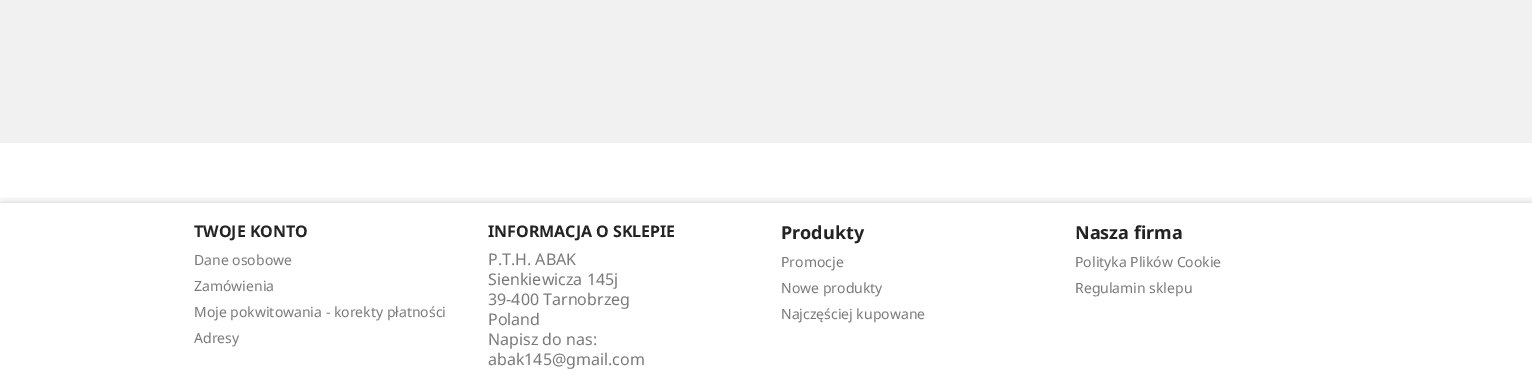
%!PS
<< /PageSize [1532 375] /PageUsesTransparency true >> setpagedevice
/rgb { dup -16 bitshift 255 div exch dup -8 bitshift 255 and 255 div exch 255 and 255 div setrgbcolor } def
/font { [ exch dup neg 0 0 3 -1 roll 0 0 ] selectfont } def
/text { moveto show } def
/alpha { dup .setfillconstantalpha .setstrokeconstantalpha } def
/roundrect { 5 dict begin { /r /h /w /y /x } { exch def } forall
  x r add y moveto x w add y 2 copy h add r arct x w add y h add x 1 index r arct
  x y h add x y r arct x y 2 copy exch w add exch r arct closepath end } def
/shadow { 12 dict begin { /a /b /q /h /w /y /x } { exch def } forall gsave /was 0 def
  9 -2 -9 { dup b mul 4 div /e exch def 1 sub .425 mul 2.718 exch exp 1 add a .99 .min exch div /now exch def
    1 1 now sub 1 was sub div sub alpha /was now def
    w h .min e 2 mul add 0 gt { x e sub y e sub w e 2 mul add h e 2 mul add
      q e add b .6 mul add w h .min 2 div e add .min 0 .max roundrect fill } if } for grestore end } def
0 .pushpdf14devicefilter
0 375 translate 1 -1 scale
4 setmiterlimit
/s1 { /NotoSans-Bold 16 font 16#232323 rgb } def
/s2 { /NotoSans-Regular 14 font 16#7A7A7A rgb } def
/s3 { /NotoSans-Regular 16 font 16#7A7A7A rgb } def
/s4 { /NotoSans-Bold 18 font 16#232323 rgb } def
16#FFFFFF rgb
0 0 1532 375 rectfill
16#F1F1F1 rgb
0 0 1532 143 rectfill
gsave
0 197 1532 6 rectclip
16#000000 rgb
2 205 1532 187 0 5.5 0.3 shadow
grestore
s1
(TWOJE KONTO) 194 237 text
s2
(Dane osobowe) 194 265 text
(Zamówienia) 194 291 text
(Moje pokwitowania - korekty płatności) 194 317 text
(Adresy) 194 343 text
s1
(INFORMACJA O SKLEPIE) 488 237 text
s3
(P.T.H. ABAK) 488 265 text
(Sienkiewicza 145j) 488 285 text
(39-400 Tarnobrzeg) 488 305 text
(Poland) 488 325 text
(Napisz do nas:) 488 345 text
(abak145@gmail.com) 488 365 text
s4
(Produkty) 781 239 text
s2
(Promocje) 781 267 text
(Nowe produkty) 781 293 text
(Najczęściej kupowane) 781 319 text
s4
(Nasza firma) 1075 239 text
s2
(Polityka Plików Cookie) 1075 267 text
(Regulamin sklepu) 1075 293 text
.poppdf14devicefilter showpage
